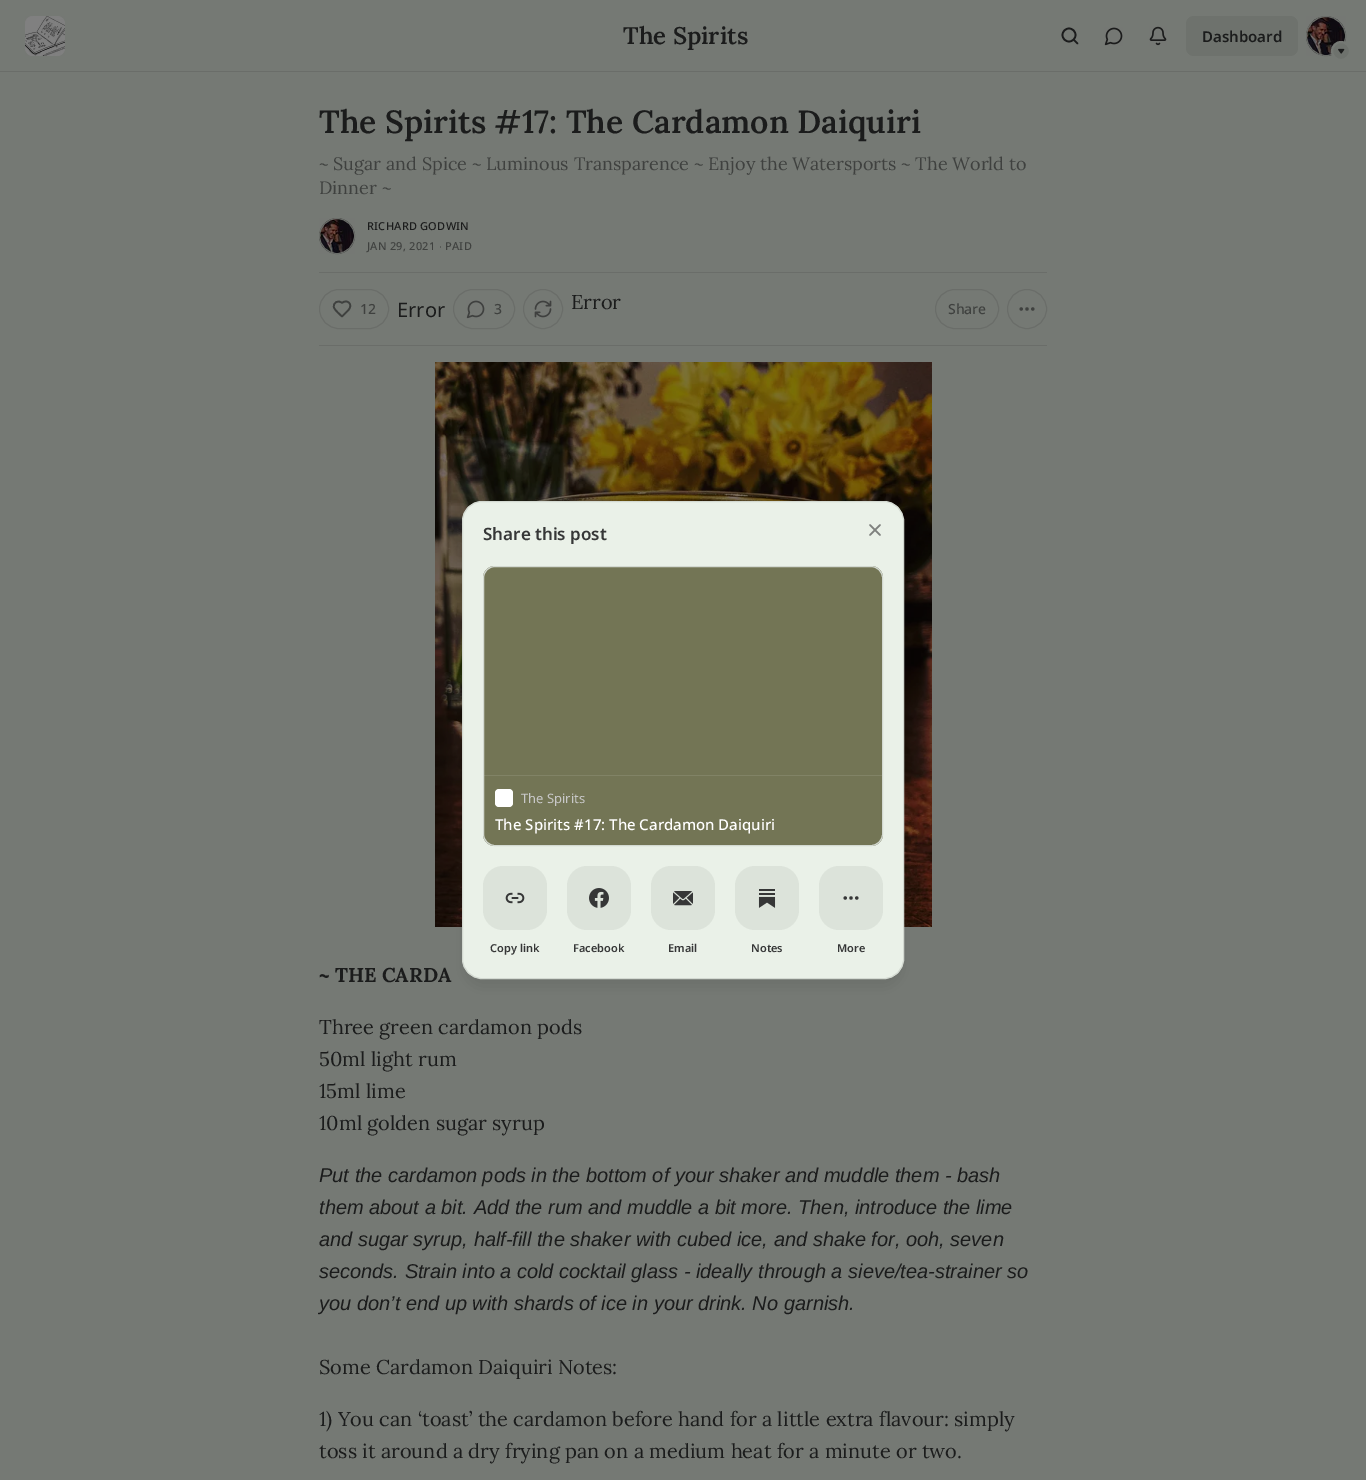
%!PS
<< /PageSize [1366 1480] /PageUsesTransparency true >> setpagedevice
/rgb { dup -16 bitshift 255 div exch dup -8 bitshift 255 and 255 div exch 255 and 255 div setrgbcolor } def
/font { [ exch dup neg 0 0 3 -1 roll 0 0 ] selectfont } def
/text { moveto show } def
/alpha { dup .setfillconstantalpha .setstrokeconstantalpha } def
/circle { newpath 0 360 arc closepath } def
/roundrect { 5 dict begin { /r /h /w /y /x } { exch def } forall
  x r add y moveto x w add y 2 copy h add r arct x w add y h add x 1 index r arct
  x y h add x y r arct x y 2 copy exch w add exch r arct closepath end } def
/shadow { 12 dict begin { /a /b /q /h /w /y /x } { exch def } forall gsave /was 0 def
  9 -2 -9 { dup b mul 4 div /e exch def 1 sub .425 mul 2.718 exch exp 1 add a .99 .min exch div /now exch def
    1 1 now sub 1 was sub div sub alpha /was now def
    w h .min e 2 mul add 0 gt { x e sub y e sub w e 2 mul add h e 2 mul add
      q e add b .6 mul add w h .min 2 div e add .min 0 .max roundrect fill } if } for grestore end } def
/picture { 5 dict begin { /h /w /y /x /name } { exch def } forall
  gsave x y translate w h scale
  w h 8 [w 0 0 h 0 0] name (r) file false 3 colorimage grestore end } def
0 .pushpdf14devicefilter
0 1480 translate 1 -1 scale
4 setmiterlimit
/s1 { /Lora-SemiBold 24 font 16#1B1C1C rgb } def
/s2 { /NotoSans-SemiBold 15 font 16#1B1C1C rgb } def
/s3 { /Lora-SemiBold 32 font 16#1B1C1C rgb } def
/s4 { /Lora-Regular 18 font 16#3F413F rgb } def
/s5 { /NotoSans-Medium 14 font 16#3F413F rgb } def
/s6 { /NotoSans-Regular 20 font 16#1B1C1C rgb } def
/s7 { /Lora-Regular 20 font 16#1B1C1C rgb } def
/s8 { /Lora-Bold 20 font 16#1B1C1C rgb } def
/s9 { /LiberationSans-Italic 20 font 16#1B1C1C rgb } def
/s10 { /NotoSans-SemiBold 17 font 16#363737 rgb } def
/s11 { /NotoSans-Regular 13 font 16#C8C8C8 rgb } def
/s12 { /NotoSans-Medium 15 font 16#FFFFFF rgb } def
/s13 { /NotoSans-SemiBold 11 font 16#363737 rgb } def
16#757974 rgb
0 0 1366 1480 rectfill
16#6A6D69 rgb
0 71 1366 1 rectfill
16#808080 rgb
25 16 40 40 8 roundrect fill
(pic1.raw) 25 16 40 40 picture
s1
(The Spirits) 623 44 text
1.7 setlinewidth
1069 35 6.5 circle stroke
1 setlinecap
1 setlinejoin
1077.5 43.5 moveto 1074 40 lineto stroke
(pic2.raw) 1104 27 19 19 picture
(pic3.raw) 1149 26 18 20 picture
16#6E726D rgb
1186 16 112 40 8 roundrect fill
s2
(Dashboard) 1202 42 text
16#6A6D69 rgb
1 setlinewidth
0 setlinecap
0 setlinejoin
1326 36 19.5 circle stroke
(pic4.raw) 1306 16 40 40 picture
1326 36 19.5 circle stroke
16#6E726D rgb
1341 51 9 circle gsave fill grestore
16#757974 rgb
2 setlinewidth
stroke
(pic5.raw) 1338 48 7 6 picture
s3
(The Spirits #17: The Cardamon Daiquiri) 319 133 text
s4
(~ Sugar and Spice ~ Luminous Transparence ~ Enjoy the Watersports ~ The World to) 319 170 text
(Dinner ~) 319 194 text
16#6A6D69 rgb
1 setlinewidth
337 236 17.5 circle stroke
(pic6.raw) 319 218 36 36 picture
337 236 17.5 circle stroke
/NotoSans-Medium 11 font
16#1B1C1C rgb
367 230 moveto 0.25 0 (RICHARD GODWIN) ashow
16#3F413F rgb
367 250 moveto 0.25 0 (JAN 29, 2021) ashow
/LiberationSans-Regular 11 font
439 250 moveto 0.25 0 (∙) ashow
/NotoSans-Medium 11 font
445 250 moveto 0.25 0 (PAID) ashow
16#6A6D69 rgb
319 272 728 1 rectfill
319 345 728 1 rectfill
319.5 289.5 69 39 19.5 roundrect stroke
16#3F413F rgb
1.7 setlinewidth
1 setlinecap
1 setlinejoin
348 310.5 moveto 354 304.5 347 298.5 342 303 curveto 338.5 299.5 332.5 302.5 334 307.5 curveto 335 310.5 340 314.5 342 316.5 curveto closepath stroke
s5
(12) 360 314 text
s6
(Error) 397 317 text
16#6A6D69 rgb
1 setlinewidth
0 setlinecap
0 setlinejoin
453.5 289.5 61 39 19.5 roundrect stroke
(pic7.raw) 466 300 19 19 picture
s5
(3) 494 314 text
16#6A6D69 rgb
543 309 19.5 circle stroke
(pic8.raw) 534 300 18 18 picture
s7
(Error) 571 309 text
16#6A6D69 rgb
935.5 289.5 63 39 19.5 roundrect stroke
s5
(Share) 948 314 text
16#6A6D69 rgb
1027 309 19.5 circle stroke
16#3F413F rgb
1.7 setlinewidth
1027 309 0.8 circle stroke
1032.8 309 0.8 circle stroke
1021.2 309 0.8 circle stroke
(pic9.raw) 435 362 497 565 picture
s8
(~ THE CARDA) 319 982 text
s7
(Three green cardamon pods) 319 1034 text
(50ml light rum) 319 1066 text
(15ml lime) 319 1098 text
(10ml golden sugar syrup) 319 1130 text
s9
(Put the cardamon pods in the bottom of your shaker and muddle them - bash) 319 1182 text
(them about a bit. Add the rum and muddle a bit more. Then, introduce the lime) 319 1214 text
(and sugar syrup, half-fill the shaker with cubed ice, and shake for, ooh, seven) 319 1246 text
(seconds. Strain into a cold cocktail glass - ideally through a sieve/tea-strainer so) 319 1278 text
(you don’t end up with shards of ice in your drink. No garnish.) 319 1310 text
s7
(Some Cardamon Daiquiri Notes:) 319 1374 text
(1\) You can ‘toast’ the cardamon before hand for a little extra flavour: simply) 319 1426 text
(toss it around a dry frying pan on a medium heat for a minute or two.) 319 1458 text
16#000000 rgb
465 514 436 472 17 7.5 0.1 shadow
16#EAF1E8 rgb
462.5 501.5 441 477 19.5 roundrect gsave fill grestore
16#D3D9D1 rgb
1 setlinewidth
stroke
s10
(Share this post) 483 540 text
16#7E817E rgb
1.7 setlinewidth
1 setlinecap
1 setlinejoin
880 525 moveto 870 535 lineto 870 525 moveto 880 535 lineto stroke
16#DCE3DA rgb
483 566 400 280 12 roundrect fill
0.75 alpha
16#505029 rgb
483 566 400 280 12 roundrect fill
1 alpha
16#818366 rgb
483 775 400 1 rectfill
16#FFFFFF rgb
495 789 18 18 4 roundrect fill
16#D3D9D1 rgb
1 setlinewidth
0 setlinecap
0 setlinejoin
483.5 566.5 399 279 11.5 roundrect stroke
s11
(The Spirits) 521 803 text
s12
(The Spirits #17: The Cardamon Daiquiri) 495 830 text
16#DCE3DA rgb
483 866 64 64 20 roundrect fill
(pic10.raw) 505 892 20 12 picture
s13
(Copy link) 490 952 text
16#DCE3DA rgb
567 866 64 64 20 roundrect fill
(pic11.raw) 589 888 20 20 picture
s13
(Facebook) 573 952 text
16#DCE3DA rgb
651 866 64 64 20 roundrect fill
(pic12.raw) 673 891 20 15 picture
s13
(Email) 668 952 text
16#DCE3DA rgb
735 866 64 64 20 roundrect fill
(pic13.raw) 758 889 18 19 picture
s13
(Notes) 751 952 text
16#DCE3DA rgb
819 866 64 64 20 roundrect fill
16#363737 rgb
1.7 setlinewidth
851 898 0.8 circle stroke
856.8 898 0.8 circle stroke
845.2 898 0.8 circle stroke
(More) 837 952 text
.poppdf14devicefilter showpage
